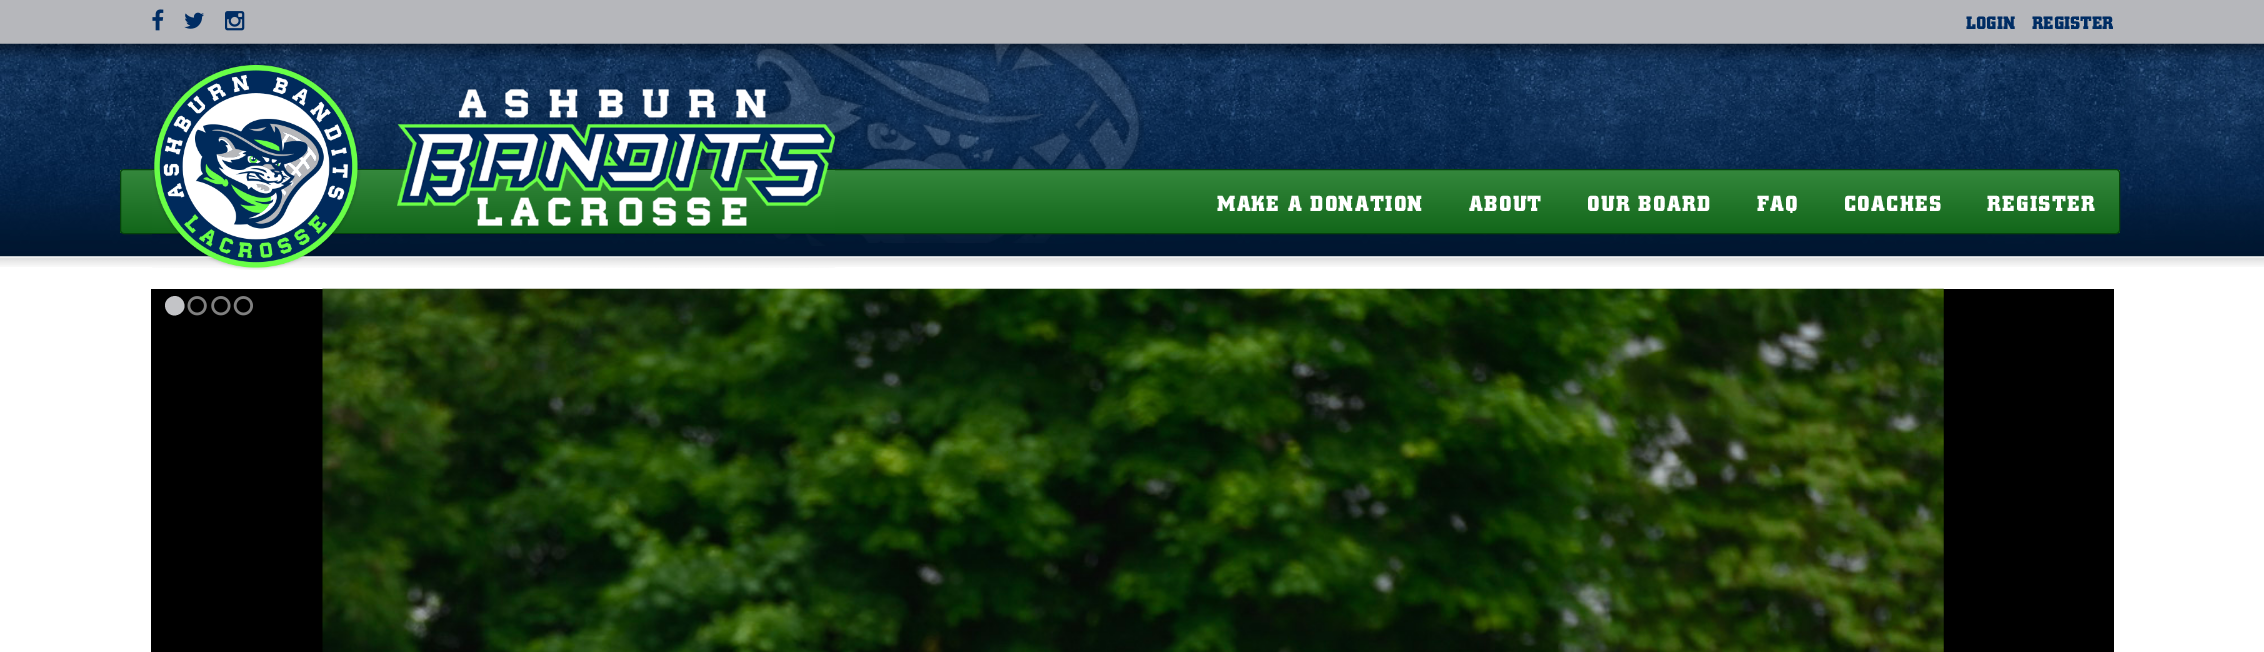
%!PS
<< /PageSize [2264 652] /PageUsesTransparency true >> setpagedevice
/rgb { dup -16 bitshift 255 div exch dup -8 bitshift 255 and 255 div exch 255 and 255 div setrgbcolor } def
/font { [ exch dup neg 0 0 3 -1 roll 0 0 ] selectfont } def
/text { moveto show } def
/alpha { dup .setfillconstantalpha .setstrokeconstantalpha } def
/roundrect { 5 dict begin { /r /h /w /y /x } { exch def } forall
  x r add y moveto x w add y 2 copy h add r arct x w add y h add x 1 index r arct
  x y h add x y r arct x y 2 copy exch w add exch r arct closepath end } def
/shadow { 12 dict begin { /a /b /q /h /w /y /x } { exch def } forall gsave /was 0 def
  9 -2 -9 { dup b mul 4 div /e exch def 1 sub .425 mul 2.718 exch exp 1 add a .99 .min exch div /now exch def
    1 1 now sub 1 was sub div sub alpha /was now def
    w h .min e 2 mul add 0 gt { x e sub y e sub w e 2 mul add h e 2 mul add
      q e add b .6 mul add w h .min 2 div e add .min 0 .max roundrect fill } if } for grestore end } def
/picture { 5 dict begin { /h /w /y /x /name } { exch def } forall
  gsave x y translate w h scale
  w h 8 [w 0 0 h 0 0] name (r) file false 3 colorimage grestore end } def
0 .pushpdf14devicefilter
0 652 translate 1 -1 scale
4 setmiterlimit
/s1 { /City-Bold 17.5 font 16#002D64 rgb } def
16#B6B7BB rgb
0 0 2264 652 rectfill
(pic1.raw) 152 9 12 22 picture
(pic2.raw) 184 12 20 17 picture
(pic3.raw) 225 11 20 20 picture
s1
(LOGIN) 1966 29 text
(REGISTER) 2032 29 text
16#FFFFFF rgb
0 256 2264 396 rectfill
(pic4.raw) 0 43 2264 214 picture
(pic6.raw) 700 43 444 200 picture
16#000000 rgb
120 171 2000 65 4 2 0.1 shadow
gsave
120 169 2000 65 4 roundrect clip newpath
gsave 120 170 moveto 2120 170 lineto 2120 233 lineto 120 233 lineto closepath clip newpath
<< /ShadingType 2 /ColorSpace /DeviceRGB /Coords [1120 170 1120 233] /Extend [true true] /Function << /FunctionType 2 /Domain [0 1] /C0 [0.204 0.529 0.235] /C1 [0.071 0.404 0.102] /N 1 >> >> shfill grestore
grestore
16#05420B rgb
120.5 169.5 1999 64 3.5 roundrect stroke
(pic7.raw) 0 257 2264 10 picture
(pic5.raw) 152 63 683 207 picture
/City-Bold 21.25 font
16#FFFFFF rgb
1217 211 moveto 1.25 0 (MAKE A DONATION) ashow
1469 211 moveto 1.25 0 (ABOUT) ashow
1587 211 moveto 1.25 0 (OUR BOARD) ashow
1757 211 moveto 1.25 0 (FAQ) ashow
1844 211 moveto 1.25 0 (COACHES) ashow
1987 211 moveto 1.25 0 (REGISTER) ashow
16#000000 rgb
151 289 1963 363 rectfill
(pic8.raw) 322 288 1622 364 picture
16#C3C4C7 rgb
183 301 moveto 189.5 312 172.5 321.5 166.5 310.5 curveto 160 299.5 176.5 290 183 301 curveto closepath fill
(pic9.raw) 187 296 20 20 picture
(pic10.raw) 211 296 20 20 picture
(pic11.raw) 233 296 20 20 picture
.poppdf14devicefilter showpage
